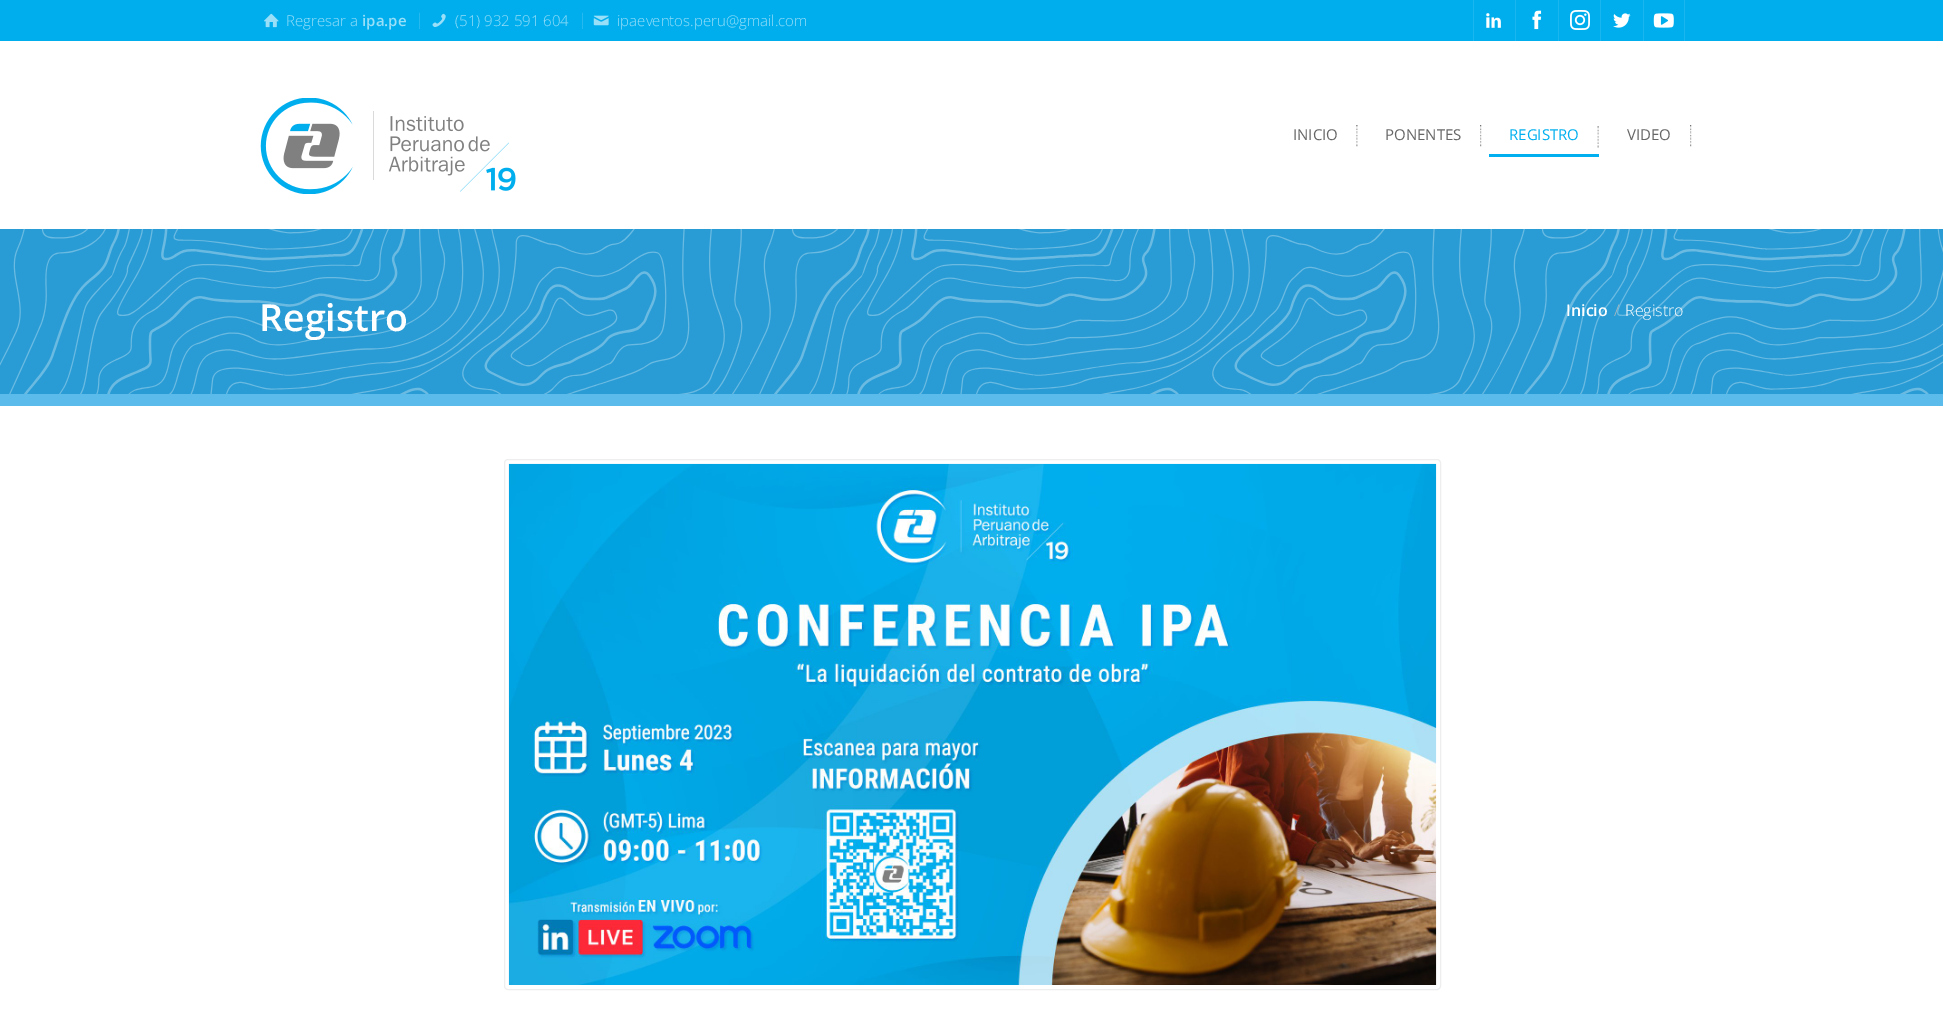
%!PS
<< /PageSize [1943 1027] >> setpagedevice
/rgb { dup -16 bitshift 255 div exch dup -8 bitshift 255 and 255 div exch 255 and 255 div setrgbcolor } def
/font { [ exch dup neg 0 0 3 -1 roll 0 0 ] selectfont } def
/text { moveto show } def
/roundrect { 5 dict begin { /r /h /w /y /x } { exch def } forall
  x r add y moveto x w add y 2 copy h add r arct x w add y h add x 1 index r arct
  x y h add x y r arct x y 2 copy exch w add exch r arct closepath end } def
/picture { 5 dict begin { /h /w /y /x /name } { exch def } forall
  gsave x y translate w h scale
  w h 8 [w 0 0 h 0 0] name (r) file false 3 colorimage grestore end } def
0 1027 translate 1 -1 scale
4 setmiterlimit
/s1 { /OpenSans-Light 15 font 16#99DFF8 rgb } def
/s2 { /OpenSans-SemiBold 15 font 16#99DFF8 rgb } def
/s3 { /OpenSans-Light 16 font 16#33BEF1 rgb } def
/s4 { /OpenSans-Regular 15 font 16#666666 rgb } def
/s5 { /OpenSans-Regular 15 font 16#00AFEF rgb } def
/s6 { /OpenSans-SemiBold 37.5 font 16#FFFFFF rgb } def
/s7 { /OpenSans-SemiBold 16 font 16#FFFFFF rgb } def
/s8 { /OpenSans-Light 16 font 16#BBBBBB rgb } def
/s9 { /OpenSans-Light 16 font 16#FFFFFF rgb } def
16#FFFFFF rgb
0 0 1943 1027 rectfill
16#00AEEE rgb
0 0 1943 41 rectfill
(pic1.raw) 264 13 15 15 picture
s1
(Regresar a) 286 26 text
s2
(ipa.pe) 362 26 text
s3
(|) 415 25 text
(pic2.raw) 432 13 14 14 picture
s1
(\(51\) 932 591 604) 455 26 text
s3
(|) 578 25 text
(pic3.raw) 593 15 16 11 picture
s1
(ipaeventos.peru@gmail.com) 617 26 text
16#1AB6F0 rgb
1473 0 1 41 rectfill
(pic4.raw) 1486 13 15 15 picture
1515 0 1 41 rectfill
(pic5.raw) 1532 10 10 20 picture
1558 0 1 41 rectfill
(pic6.raw) 1570 10 20 20 picture
1600 0 1 41 rectfill
(pic7.raw) 1613 13 18 15 picture
1684 0 1 41 rectfill
1643 0 1 41 rectfill
(pic8.raw) 1653 13 21 15 picture
(pic9.raw) 260 98 256 96 picture
(pic10.raw) 1356 125 2 22 picture
s4
(INICIO) 1293 140 text
(pic11.raw) 1480 125 2 22 picture
(PONENTES) 1385 140 text
(pic12.raw) 1597 126 2 22 picture
16#00AFEF rgb
1489 154 110 3 rectfill
(REGISTRO) 1509 140 text
(pic11.raw) 1690 125 2 22 picture
s4
(VIDEO) 1627 140 text
16#299CD5 rgb
0 229 1943 165 rectfill
(pic13.raw) 0 229 1943 165 picture
16#5BBCEC rgb
0 394 1943 12 rectfill
s6
(Registro) 259 331 text
s7
(Inicio) 1566 316 text
s8
(/) 1614 316 text
s9
(Registro) 1625 316 text
16#EEEEEE rgb
504.5 459.5 936 530 3.5 roundrect stroke
(pic14.raw) 508 463 929 522 picture
showpage
